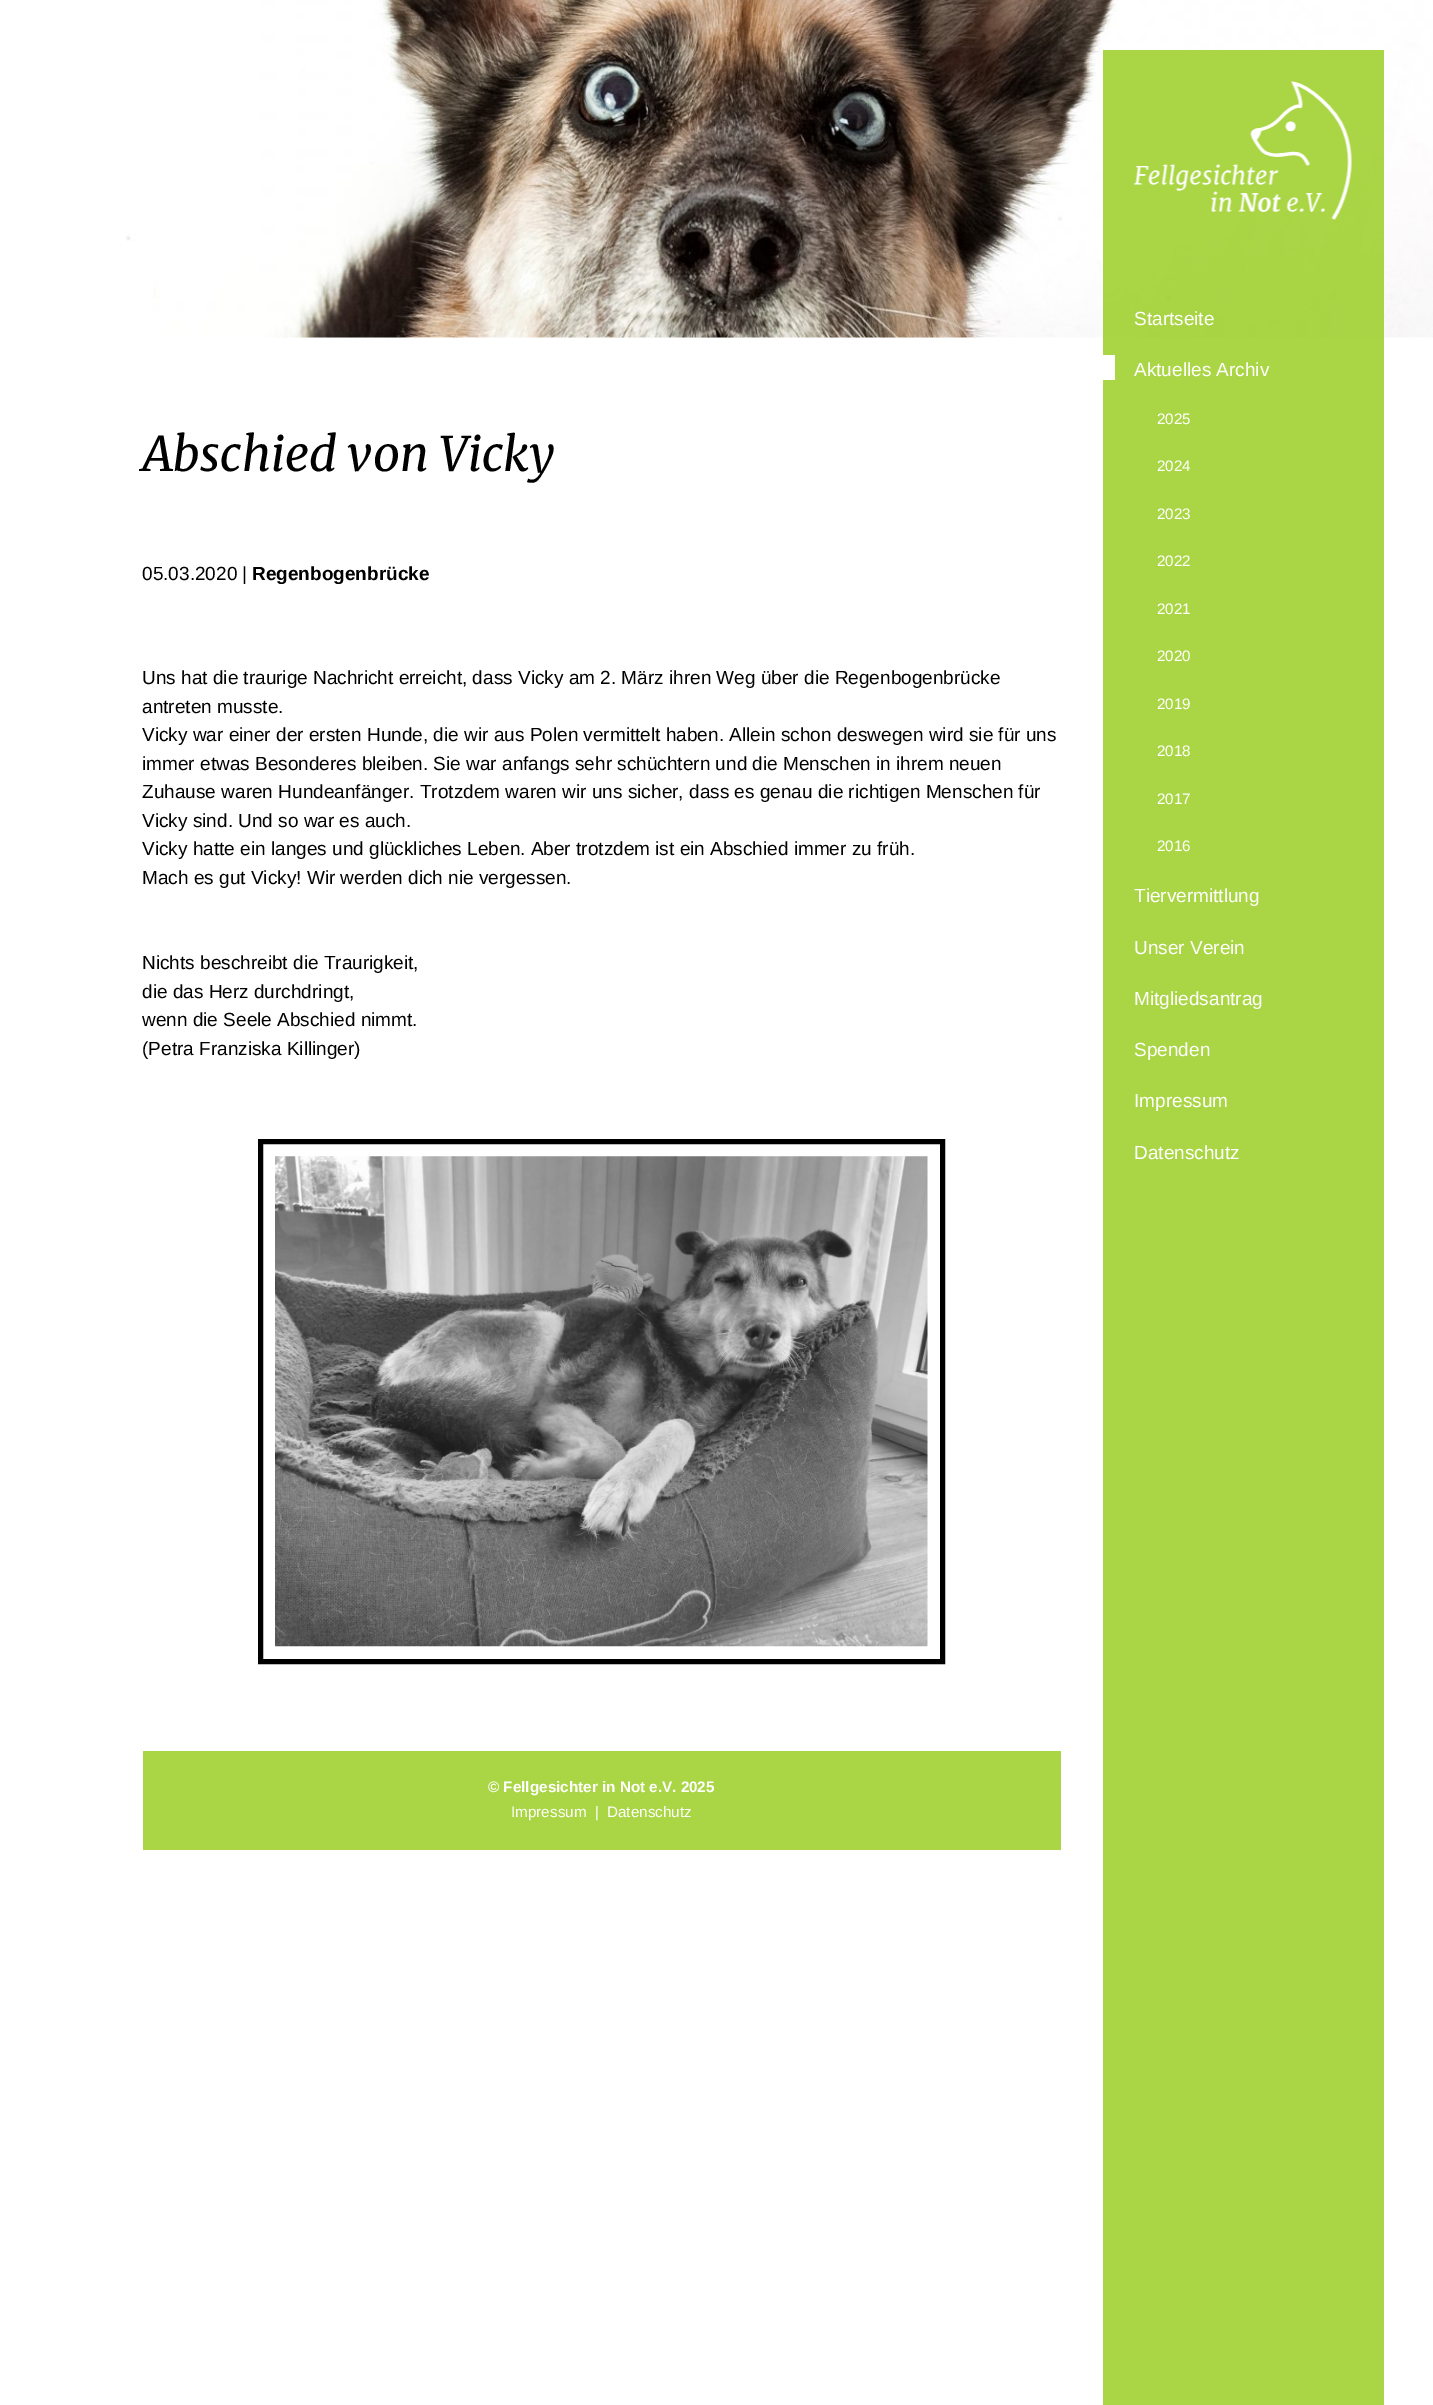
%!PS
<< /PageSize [1433 2405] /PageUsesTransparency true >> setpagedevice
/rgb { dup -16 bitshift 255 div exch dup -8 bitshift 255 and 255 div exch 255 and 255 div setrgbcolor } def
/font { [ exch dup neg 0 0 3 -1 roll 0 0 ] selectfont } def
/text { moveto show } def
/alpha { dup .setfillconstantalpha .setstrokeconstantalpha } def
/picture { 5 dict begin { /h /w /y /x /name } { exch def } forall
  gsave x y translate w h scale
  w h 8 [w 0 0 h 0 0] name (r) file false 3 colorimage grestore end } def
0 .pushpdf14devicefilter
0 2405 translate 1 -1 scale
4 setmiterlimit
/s1 { /Merriweather-Italic 47.5 font 16#000000 rgb } def
/s2 { /LiberationSans-Regular 19 font 16#000000 rgb } def
/s3 { /LiberationSans-Bold 19 font 16#000000 rgb } def
/s4 { /LiberationSans-Bold 15.25 font 16#FFFFFF rgb } def
/s5 { /LiberationSans-Regular 15.25 font 16#FFFFFF rgb } def
/s6 { /LiberationSans-Regular 19 font 16#FFFFFF rgb } def
16#FFFFFF rgb
0 0 1433 2405 rectfill
(pic1.raw) 126 0 1307 338 picture
s1
(Abschied von Vicky) 142 471 text
s2
(05.03.2020 |) 142 580 text
s3
(Regenbogenbrücke) 252 580 text
s2
(Uns hat die traurige Nachricht erreicht, dass Vicky am 2. März ihren Weg über die Regenbogenbrücke) 142 684 text
(antreten musste.) 142 713 text
(Vicky war einer der ersten Hunde, die wir aus Polen vermittelt haben. Allein schon deswegen wird sie für uns) 142 741 text
(immer etwas Besonderes bleiben. Sie war anfangs sehr schüchtern und die Menschen in ihrem neuen) 142 770 text
(Zuhause waren Hundeanfänger. Trotzdem waren wir uns sicher, dass es genau die richtigen Menschen für) 142 798 text
(Vicky sind. Und so war es auch.) 142 827 text
(Vicky hatte ein langes und glückliches Leben. Aber trotzdem ist ein Abschied immer zu früh.) 142 855 text
(Mach es gut Vicky! Wir werden dich nie vergessen.) 142 884 text
(Nichts beschreibt die Traurigkeit,) 142 969 text
(die das Herz durchdringt,) 142 998 text
(wenn die Seele Abschied nimmt.) 142 1026 text
(\(Petra Franziska Killinger\)) 142 1055 text
5 setlinewidth
260.5 1141.5 682 520 rectstroke
(pic2.raw) 275 1156 653 491 picture
16#AAD646 rgb
143 1751 918 99 rectfill
s4
(© Fellgesichter in Not e.V. 2025) 488 1792 text
s5
(Impressum) 511 1817 text
(|) 595 1817 text
(Datenschutz) 607 1817 text
0.8 alpha
16#95CC18 rgb
1103 50 281 2355 rectfill
1 alpha
(pic3.raw) 1133 81 219 139 picture
s6
(Startseite) 1134 325 text
1103 355 12 25 rectfill
(Aktuelles Archiv) 1134 376 text
s5
(2025) 1157 424 text
(2024) 1157 471 text
(2023) 1157 519 text
(2022) 1157 566 text
(2021) 1157 614 text
(2020) 1157 661 text
(2019) 1157 709 text
(2018) 1157 756 text
(2017) 1157 804 text
(2016) 1157 851 text
s6
(Tiervermittlung) 1134 902 text
(Unser Verein) 1134 954 text
(Mitgliedsantrag) 1134 1005 text
(Spenden) 1134 1056 text
(Impressum) 1134 1107 text
(Datenschutz) 1134 1159 text
.poppdf14devicefilter showpage
